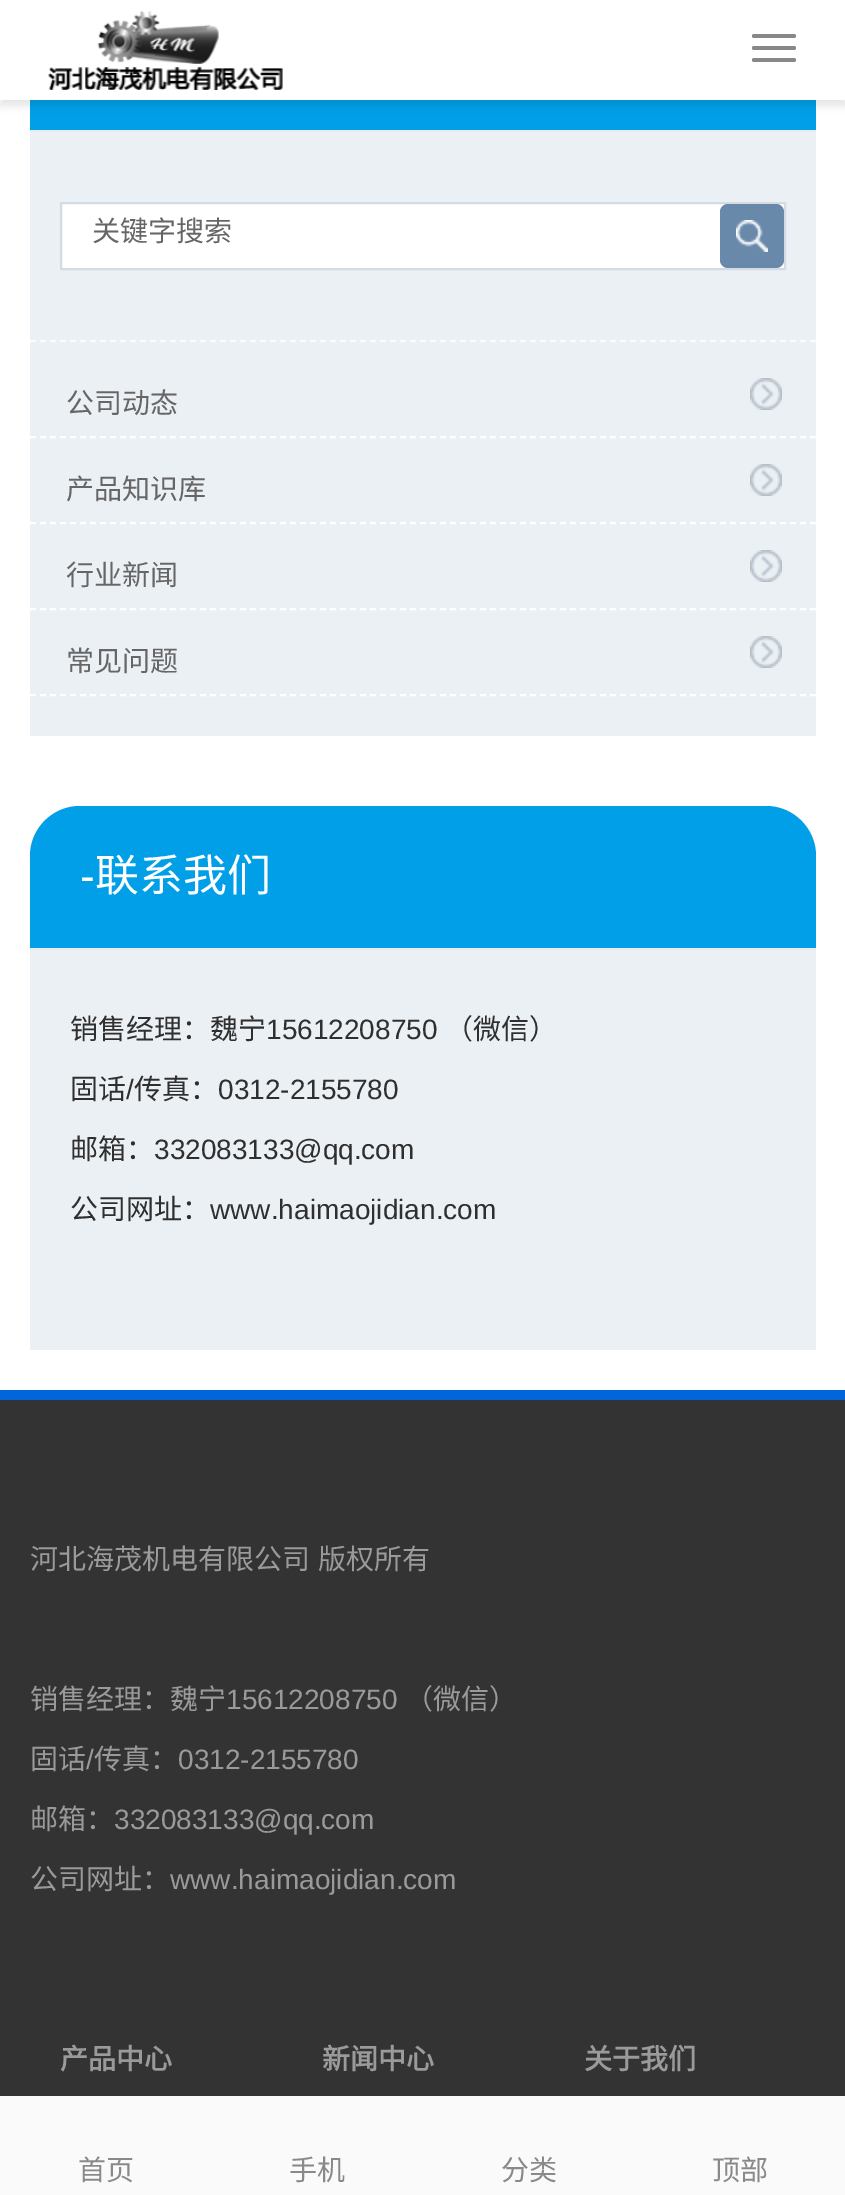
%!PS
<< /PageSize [845 2195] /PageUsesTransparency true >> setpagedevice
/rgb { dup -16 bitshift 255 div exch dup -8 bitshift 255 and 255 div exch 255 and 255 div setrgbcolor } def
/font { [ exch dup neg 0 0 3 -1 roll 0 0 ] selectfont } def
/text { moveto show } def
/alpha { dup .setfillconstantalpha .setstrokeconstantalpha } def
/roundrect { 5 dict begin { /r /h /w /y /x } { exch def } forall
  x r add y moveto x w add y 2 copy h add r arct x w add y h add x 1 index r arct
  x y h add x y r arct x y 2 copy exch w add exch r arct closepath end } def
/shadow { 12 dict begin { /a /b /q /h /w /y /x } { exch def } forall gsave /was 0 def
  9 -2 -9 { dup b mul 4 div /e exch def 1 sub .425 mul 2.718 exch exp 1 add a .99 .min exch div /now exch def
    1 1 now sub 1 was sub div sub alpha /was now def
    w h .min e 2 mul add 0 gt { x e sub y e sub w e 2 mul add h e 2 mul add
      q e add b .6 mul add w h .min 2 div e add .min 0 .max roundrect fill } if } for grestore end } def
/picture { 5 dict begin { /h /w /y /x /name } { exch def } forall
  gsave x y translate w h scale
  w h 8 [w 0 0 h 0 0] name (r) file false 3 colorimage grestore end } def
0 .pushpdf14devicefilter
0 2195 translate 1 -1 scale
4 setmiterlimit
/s1 { /NotoSansCJKSC-Regular 28 font 16#666666 rgb } def
/s2 { /LiberationSans-Regular 44 font 16#FFFFFF rgb } def
/s3 { /NotoSansCJKSC-Regular 44 font 16#FFFFFF rgb } def
/s4 { /NotoSansCJKSC-Regular 28 font 16#2F2F2F rgb } def
/s5 { /LiberationSans-Regular 28 font 16#2F2F2F rgb } def
/s6 { /NotoSansCJKSC-Regular 28 font 16#9A9A9A rgb } def
/s7 { /LiberationSans-Regular 28 font 16#9A9A9A rgb } def
/s8 { /NotoSansCJKSC-Bold 28 font 16#9A9A9A rgb } def
/s9 { /NotoSansCJKSC-Regular 28 font 16#898989 rgb } def
16#FFFFFF rgb
0 0 845 2195 rectfill
16#009FE7 rgb
30 100 786 30 rectfill
16#000000 rgb
0 6 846 100 0 4 0.1 shadow
16#FFFFFF rgb
0 1 845 99 rectfill
(pic1.raw) 48 11 235 79 picture
16#888888 rgb
752 34 44 4 2 roundrect fill
752 46 44 4 2 roundrect fill
752 58 44 4 2 roundrect fill
16#EBF0F5 rgb
30 132 786 604 rectfill
16#EBEBEB rgb
30 130 786 2 rectfill
16#FBFBFB rgb
2 setlinewidth
[6 4] 0 setdash
30 341 moveto 816 341 lineto stroke
16#FFFFFF rgb
61 203 moveto 785 203 lineto 785 269 lineto 61 269 lineto closepath gsave fill grestore
16#D3DCE5 rgb
[] 0 setdash
stroke
s1
(关键字搜索) 92 241 text
16#6989AA rgb
720 204 64 64 8 roundrect fill
(pic2.raw) 736 220 32 32 picture
16#FFFFFF rgb
[6 4] 0 setdash
30 437 moveto 816 437 lineto stroke
s1
(公司动态) 66 413 text
(pic3.raw) 750 378 32 32 picture
16#FFFFFF rgb
30 523 moveto 816 523 lineto stroke
s1
(产品知识库) 66 499 text
(pic3.raw) 750 464 32 32 picture
16#FFFFFF rgb
30 609 moveto 816 609 lineto stroke
s1
(行业新闻) 66 585 text
(pic3.raw) 750 550 32 32 picture
16#FFFFFF rgb
30 695 moveto 816 695 lineto stroke
s1
(常见问题) 66 671 text
(pic3.raw) 750 636 32 32 picture
16#EBF0F5 rgb
80 806 moveto 766 806 lineto 793.5 806 816 828.5 816 856 curveto 816 1350 lineto 30 1350 lineto 30 856 lineto 30 828.5 52.5 806 80 806 curveto closepath fill
16#009FE7 rgb
80 806 moveto 766 806 lineto 793.5 806 816 828.5 816 856 curveto 816 950 lineto 30 950 lineto 30 856 lineto 30 828.5 52.5 806 80 806 curveto closepath fill
16#EBEBEB rgb
30 948 786 2 rectfill
s2
(-) 80 891 text
s3
(联系我们) 95 891 text
s4
(销售经理：魏宁) 70 1039 text
s5
(15612208750) 266 1039 text
s4
(（微信）) 445 1039 text
(固话) 70 1099 text
s5
(/) 126 1099 text
s4
(传真：) 134 1099 text
s5
(0312-2155780) 218 1099 text
s4
(邮箱：) 70 1159 text
s5
(332083133@qq.com) 154 1159 text
s4
(公司网址：) 70 1219 text
s5
(www.haimaojidian.com) 210 1219 text
16#333333 rgb
0 1400 845 696 rectfill
16#0066D9 rgb
0 1390 845 10 rectfill
/NotoSansCJKSC-Regular 28 font
16#9A9A9A rgb
30 1569 moveto 2 0 32 (河北海茂机电有限公司 版权所有) widthshow
(销售经理：魏宁) 30 1709 text
s7
(15612208750) 226 1709 text
s6
(（微信）) 405 1709 text
(固话) 30 1769 text
s7
(/) 86 1769 text
s6
(传真：) 94 1769 text
s7
(0312-2155780) 178 1769 text
s6
(邮箱：) 30 1829 text
s7
(332083133@qq.com) 114 1829 text
s6
(公司网址：) 30 1889 text
s7
(www.haimaojidian.com) 170 1889 text
s8
(产品中心) 60 2069 text
(新闻中心) 322 2069 text
(关于我们) 584 2069 text
16#FAFAFA rgb
0 2096 845 99 rectfill
s9
(首页) 78 2180 text
(手机) 289 2180 text
(分类) 501 2180 text
(顶部) 712 2180 text
.poppdf14devicefilter showpage
